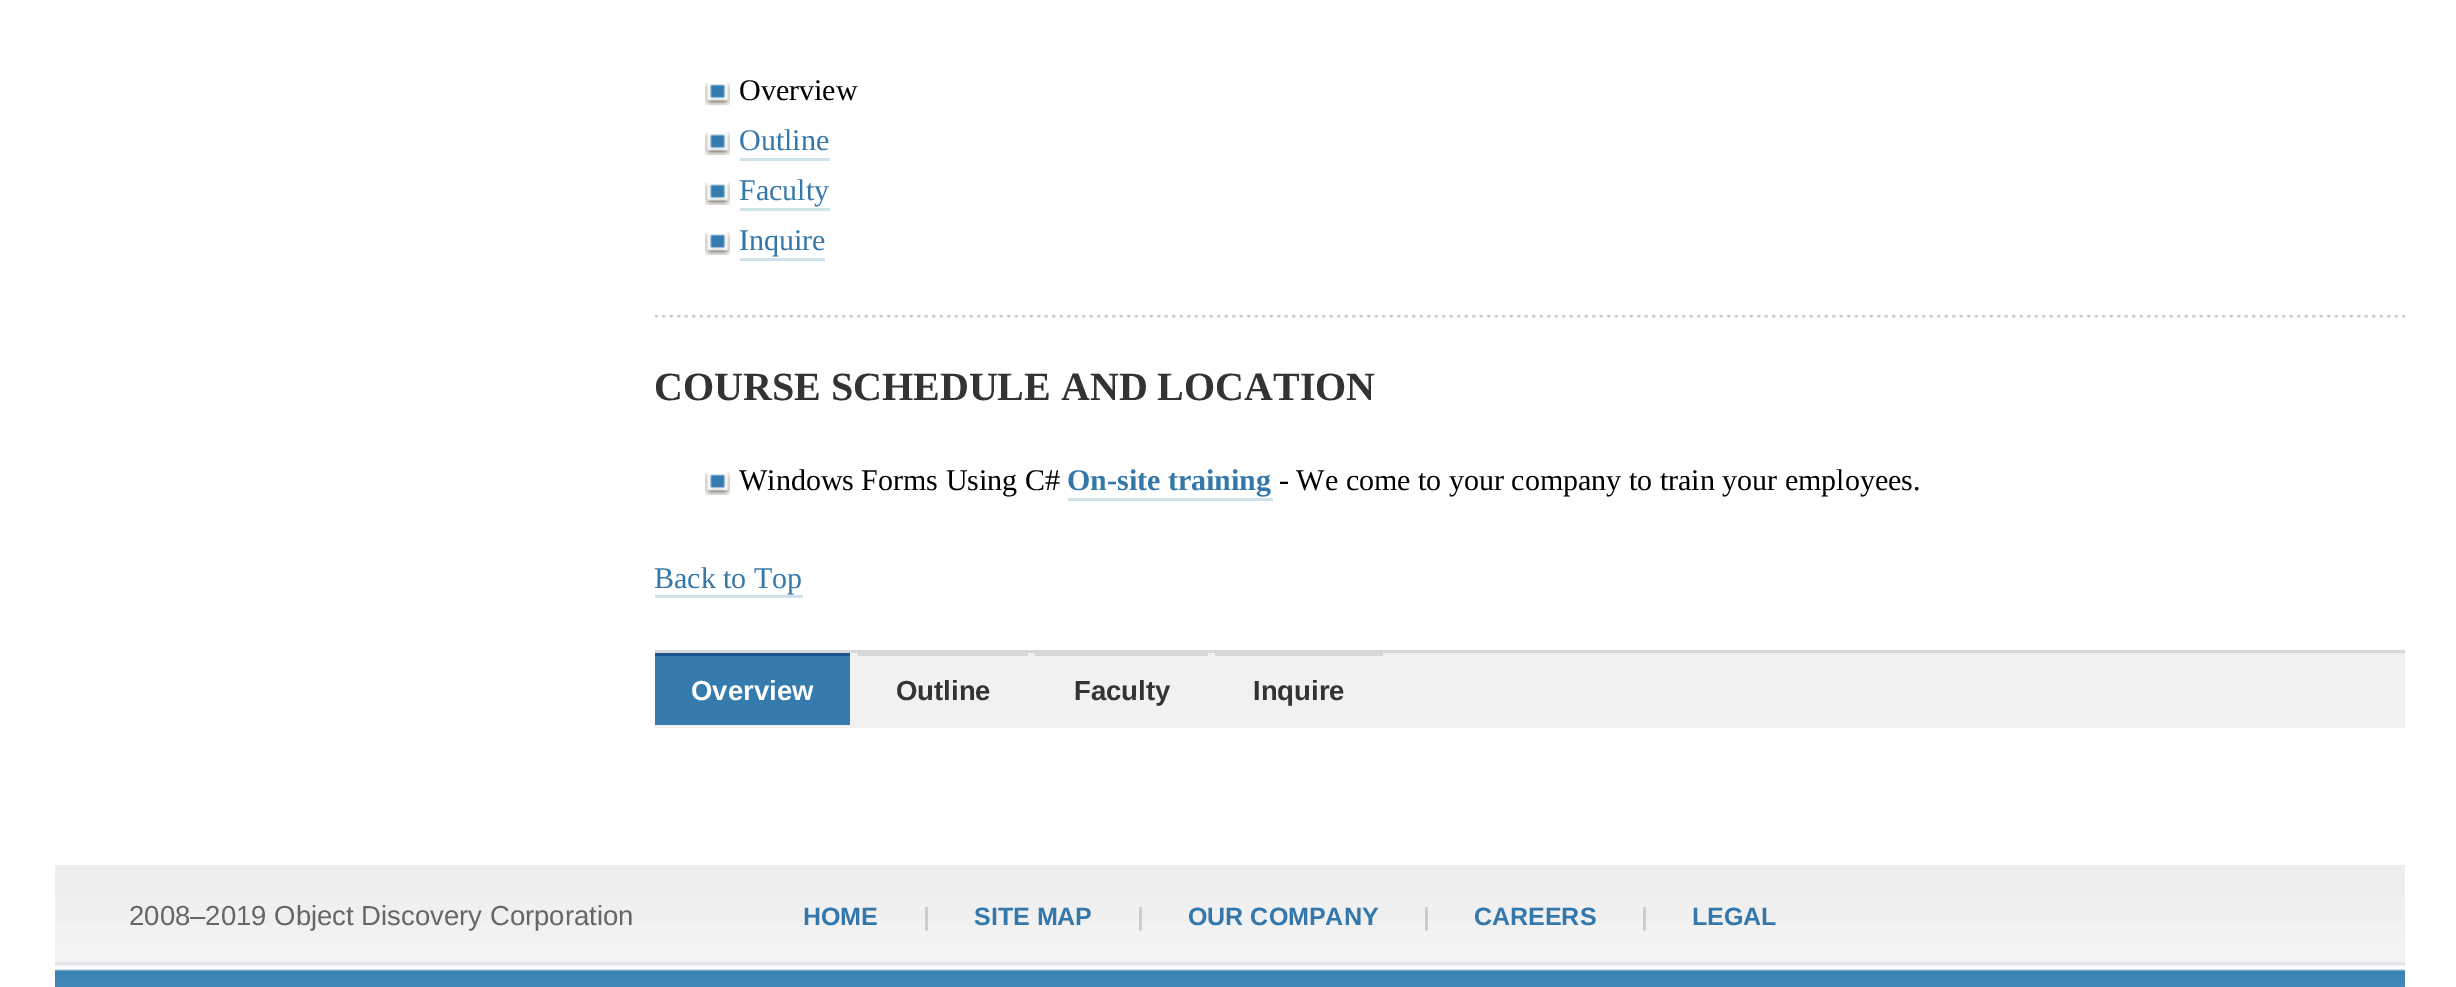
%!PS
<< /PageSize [2456 987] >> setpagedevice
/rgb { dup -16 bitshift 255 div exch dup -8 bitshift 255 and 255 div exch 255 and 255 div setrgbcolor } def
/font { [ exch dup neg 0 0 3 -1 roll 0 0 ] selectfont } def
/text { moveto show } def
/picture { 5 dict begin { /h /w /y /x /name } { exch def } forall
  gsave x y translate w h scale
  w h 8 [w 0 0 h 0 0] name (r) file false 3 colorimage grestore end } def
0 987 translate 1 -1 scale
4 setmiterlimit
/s1 { /LiberationSerif-Regular 30 font 16#000000 rgb } def
/s2 { /LiberationSerif-Regular 30 font 16#3377AB rgb } def
/s3 { /LiberationSerif-Bold 40 font 16#333333 rgb } def
/s4 { /LiberationSerif-Bold 30 font 16#3377AB rgb } def
/s5 { /LiberationSans-Bold 27.5 font 16#FFFFFF rgb } def
/s6 { /LiberationSans-Bold 27.5 font 16#333333 rgb } def
/s7 { /LiberationSans-Regular 27.5 font 16#666666 rgb } def
/s8 { /LiberationSans-Bold 25 font 16#3377AB rgb } def
/s9 { /LiberationSans-Bold 25 font 16#CCCCCC rgb } def
16#FFFFFF rgb
0 0 2456 987 rectfill
(pic1.raw) 705 82 25 23 picture
s1
(Overview) 739 100 text
(pic1.raw) 705 132 25 23 picture
s2
(Outline) 739 150 text
16#CDE2EB rgb
740 158 90 3 rectfill
(pic1.raw) 705 182 25 23 picture
s2
(Faculty) 739 200 text
16#CDE2EB rgb
740 208 90 3 rectfill
(pic1.raw) 705 232 25 23 picture
s2
(Inquire) 739 250 text
16#CDE2EB rgb
740 258 85 3 rectfill
(pic2.raw) 655 315 1750 3 picture
s3
(COURSE SCHEDULE AND LOCATION) 654 400 text
(pic1.raw) 705 472 25 23 picture
s1
(Windows Forms Using C#) 739 490 text
s4
(On-site training) 1067 490 text
16#CDE2EB rgb
1068 498 205 3 rectfill
s1
(- We come to your company to train your employees.) 1279 490 text
s2
(Back to Top) 654 588 text
16#CDE2EB rgb
655 595 148 3 rectfill
16#F1F1F1 rgb
655 653 1750 75 rectfill
16#D7D7D7 rgb
655 650 1750 3 rectfill
16#367BAE rgb
655 656 195 69 rectfill
s5
(Overview) 691 700 text
16#1C5590 rgb
655 653 195 3 rectfill
s6
(Outline) 896 700 text
16#D7D7D7 rgb
858 653 170 3 rectfill
s6
(Faculty) 1074 700 text
16#D7D7D7 rgb
1035 653 173 3 rectfill
s6
(Inquire) 1253 700 text
16#D7D7D7 rgb
1215 653 168 3 rectfill
(pic3.raw) 55 865 2350 122 picture
s7
(2008–2019 Object Discovery Corporation) 129 925 text
s8
(HOME) 803 925 text
s9
(|) 923 925 text
s8
(SITE MAP) 974 925 text
s9
(|) 1137 925 text
s8
(OUR COMPANY) 1188 925 text
s9
(|) 1423 925 text
s8
(CAREERS) 1474 925 text
s9
(|) 1641 925 text
s8
(LEGAL) 1692 925 text
showpage
